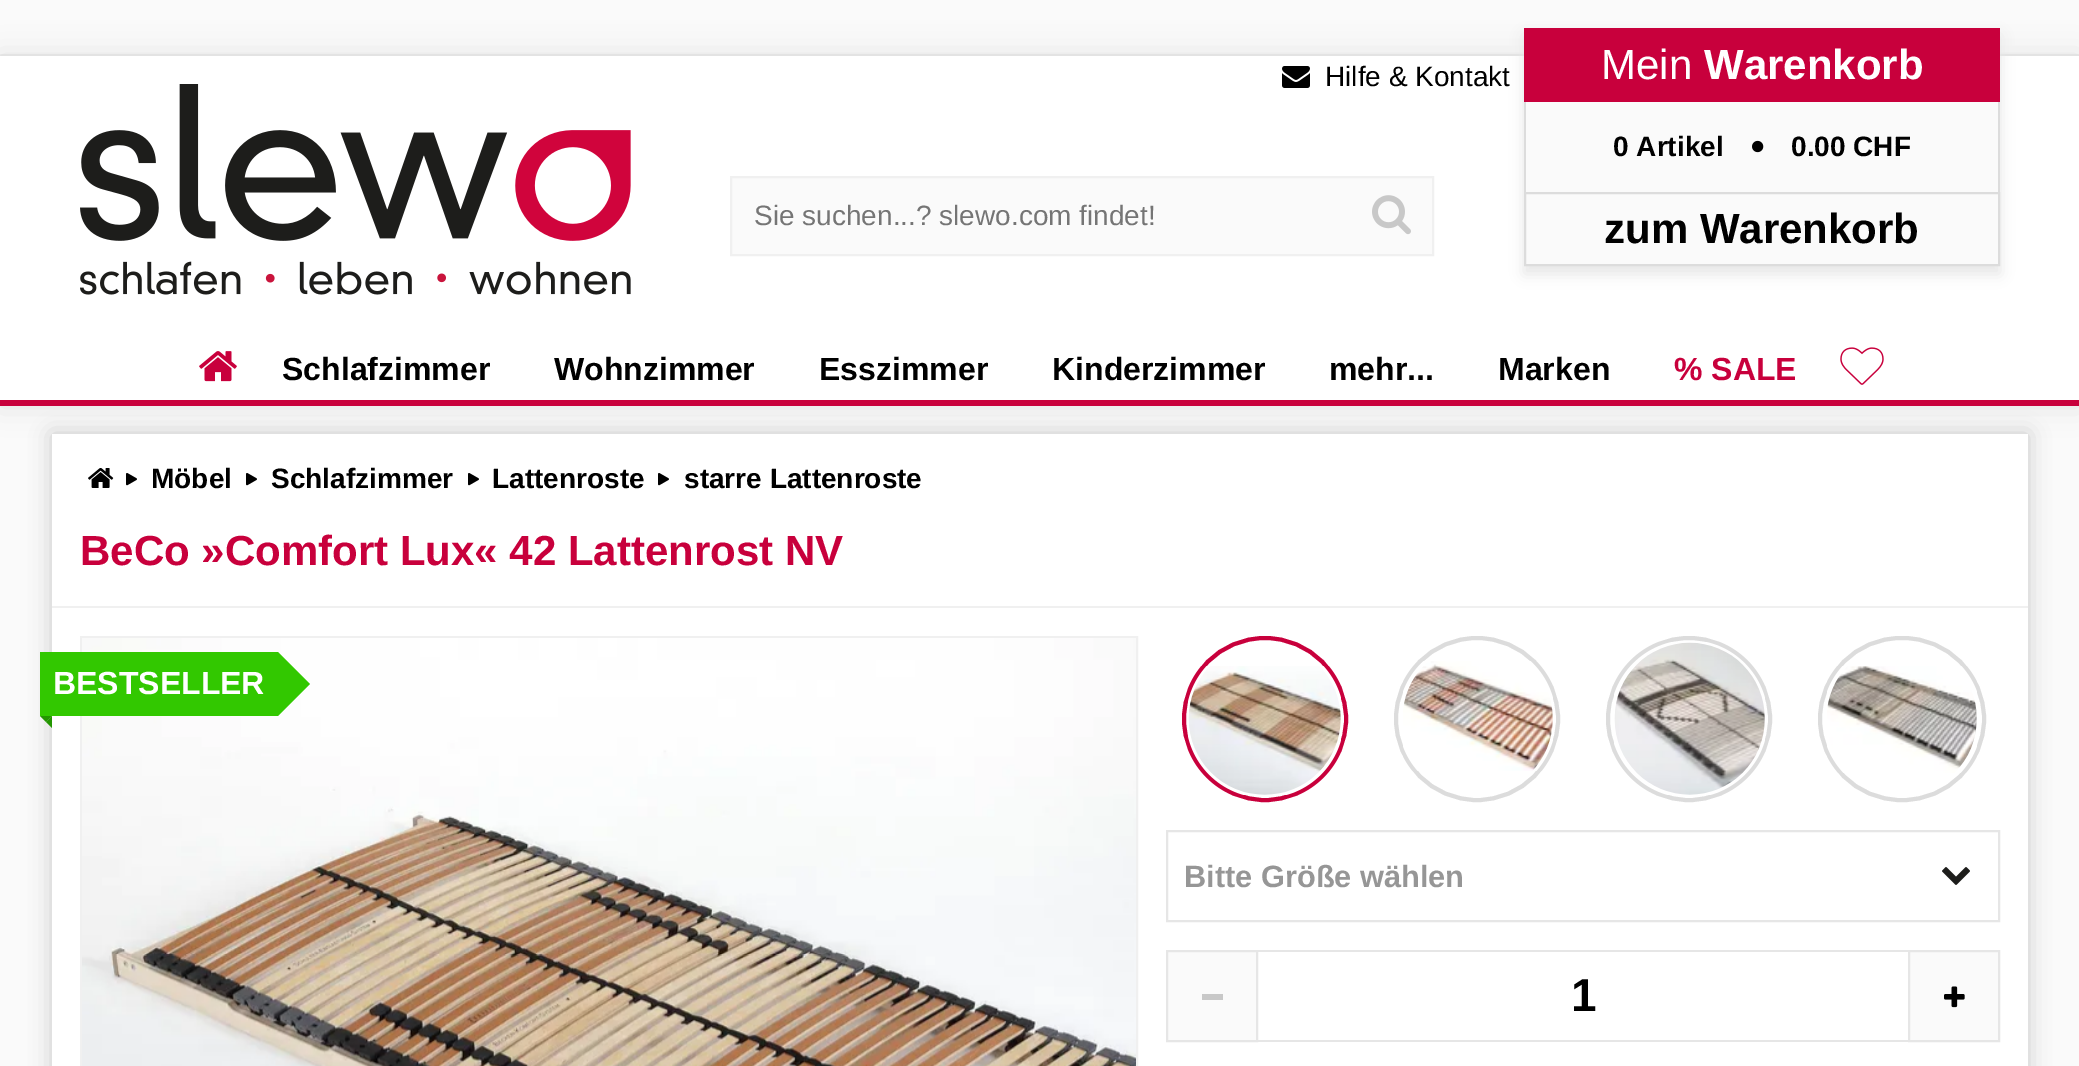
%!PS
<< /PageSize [2079 1066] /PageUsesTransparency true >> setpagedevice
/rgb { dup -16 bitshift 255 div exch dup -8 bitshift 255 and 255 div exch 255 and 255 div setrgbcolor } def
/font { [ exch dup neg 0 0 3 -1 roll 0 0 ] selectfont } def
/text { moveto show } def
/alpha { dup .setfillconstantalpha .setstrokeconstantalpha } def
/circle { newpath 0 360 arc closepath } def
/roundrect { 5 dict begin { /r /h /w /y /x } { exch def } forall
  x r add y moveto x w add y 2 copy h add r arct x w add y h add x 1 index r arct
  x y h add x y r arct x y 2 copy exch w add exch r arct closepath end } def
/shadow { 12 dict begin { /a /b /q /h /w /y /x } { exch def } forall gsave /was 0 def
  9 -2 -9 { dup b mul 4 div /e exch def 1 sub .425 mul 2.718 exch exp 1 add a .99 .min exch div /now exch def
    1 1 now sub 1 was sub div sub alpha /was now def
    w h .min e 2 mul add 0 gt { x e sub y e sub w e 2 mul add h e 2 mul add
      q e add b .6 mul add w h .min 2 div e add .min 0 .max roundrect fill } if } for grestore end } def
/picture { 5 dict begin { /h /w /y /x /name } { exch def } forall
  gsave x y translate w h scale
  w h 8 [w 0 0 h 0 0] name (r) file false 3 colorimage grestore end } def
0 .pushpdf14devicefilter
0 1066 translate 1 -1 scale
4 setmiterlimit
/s1 { /LiberationSans-Regular 28 font 16#000000 rgb } def
/s2 { /LiberationSans-Regular 42 font 16#FFFFFF rgb } def
/s3 { /LiberationSans-Bold 42 font 16#FFFFFF rgb } def
/s4 { /LiberationSans-Bold 28 font 16#000000 rgb } def
/s5 { /LiberationSans-Bold 42 font 16#000000 rgb } def
/s6 { /LiberationSans-Regular 28 font 16#757575 rgb } def
/s7 { /LiberationSans-Bold 32 font 16#000000 rgb } def
/s8 { /LiberationSans-Bold 32 font 16#C8003C rgb } def
/s9 { /LiberationSans-Bold 42 font 16#C8003C rgb } def
/s10 { /LiberationSans-Bold 32 font 16#FFFFFF rgb } def
/s11 { /LiberationSans-Bold 30.75 font 16#969696 rgb } def
/s12 { /LiberationSans-Bold 46 font 16#000000 rgb } def
16#FAFAFA rgb
0 0 2079 1066 rectfill
16#F0F0F0 rgb
0 54 2079 2 rectfill
16#000000 rgb
0 56 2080 350 0 14 0.1 shadow
16#FFFFFF rgb
0 56 2079 344 rectfill
16#C8003C rgb
0 400 2079 6 rectfill
(pic1.raw) 1282 66 28 22 picture
s1
(Hilfe & Kontakt) 1325 86 text
16#E6E6E6 rgb
1524 36 476 238 0 7 1 shadow
16#FAFAFA rgb
1526 102 472 162 rectfill
16#C8003C rgb
1524 28 476 74 rectfill
s2
(Mein) 1601 79 text
s3
(Warenkorb) 1704 79 text
16#DCDCDC rgb
1998 102 2 90 rectfill
1524 102 2 90 rectfill
s4
(0 Artikel) 1613 156 text
(pic2.raw) 1752 140 12 13 picture
(0.00 CHF) 1791 156 text
16#DCDCDC rgb
2 setlinewidth
1525 193 474 72 rectstroke
s5
(zum Warenkorb) 1604 243 text
(pic3.raw) 80 84 551 211 picture
16#FAFAFA rgb
731 177 moveto 1433 177 lineto 1433 255 lineto 731 255 lineto closepath gsave fill grestore
16#F0F0F0 rgb
stroke
s6
(Sie suchen...? slewo.com findet!) 754 225 text
(pic4.raw) 1372 195 39 40 picture
(pic5.raw) 199 351 38 31 picture
s7
(Schlafzimmer) 282 380 text
(Wohnzimmer) 554 380 text
(Esszimmer) 819 380 text
(Kinderzimmer) 1052 380 text
(mehr...) 1329 380 text
(Marken) 1498 380 text
s8
(% SALE) 1674 380 text
(pic6.raw) 1840 347 44 38 picture
16#C8C8C8 rgb
52 434 1976 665 0 11 1 shadow
16#FFFFFF rgb
52 434 1976 632 rectfill
16#F0F0F0 rgb
52 606 1976 2 rectfill
(pic7.raw) 88 468 26 20 picture
(pic8.raw) 126 473 11 13 picture
s4
(Möbel) 151 488 text
(pic8.raw) 246 473 11 13 picture
(Schlafzimmer) 271 488 text
(pic8.raw) 468 473 11 13 picture
(Lattenroste) 492 488 text
(pic8.raw) 658 473 11 13 picture
(starre Lattenroste) 684 488 text
s9
(BeCo »Comfort Lux« 42 Lattenrost NV) 80 565 text
16#F0F0F0 rgb
81 637 1056 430 rectstroke
(pic9.raw) 82 638 1054 428 picture
16#32C800 rgb
40 652 238 64 rectfill
s10
(BESTSELLER) 53 694 text
16#32C800 rgb
278 716 moveto 278 652 lineto 310 684 lineto closepath fill
16#239600 rgb
40 716 moveto 52 716 lineto 46 722 lineto closepath fill
52 716 moveto 52 728 lineto 46 722 lineto closepath fill
16#C8003C rgb
4 setlinewidth
1265 719 81 circle stroke
(pic10.raw) 1188 666 153 129 picture
16#DCDCDC rgb
1477 719 81 circle stroke
(pic11.raw) 1403 661 150 110 picture
1689 719 81 circle stroke
(pic12.raw) 1614 642 151 153 picture
1820 638 164 162 81 roundrect stroke
(pic13.raw) 1827 666 150 107 picture
16#E6E6E6 rgb
2 setlinewidth
1167 831 832 90 rectstroke
s11
(Bitte Größe wählen) 1184 887 text
(pic14.raw) 1942 867 28 18 picture
16#FAFAFA rgb
1167 951 moveto 1257 951 lineto 1257 1041 lineto 1167 1041 lineto closepath gsave fill grestore
16#E6E6E6 rgb
stroke
16#C8C8C8 rgb
1202 994 21 6 rectfill
16#E6E6E6 rgb
1258 950 650 2 rectfill
1258 1040 650 2 rectfill
s12
(1) 1571 1011 text
16#FAFAFA rgb
1909 951 moveto 1999 951 lineto 1999 1041 lineto 1909 1041 lineto closepath gsave fill grestore
16#E6E6E6 rgb
stroke
(pic15.raw) 1944 986 21 22 picture
.poppdf14devicefilter showpage
